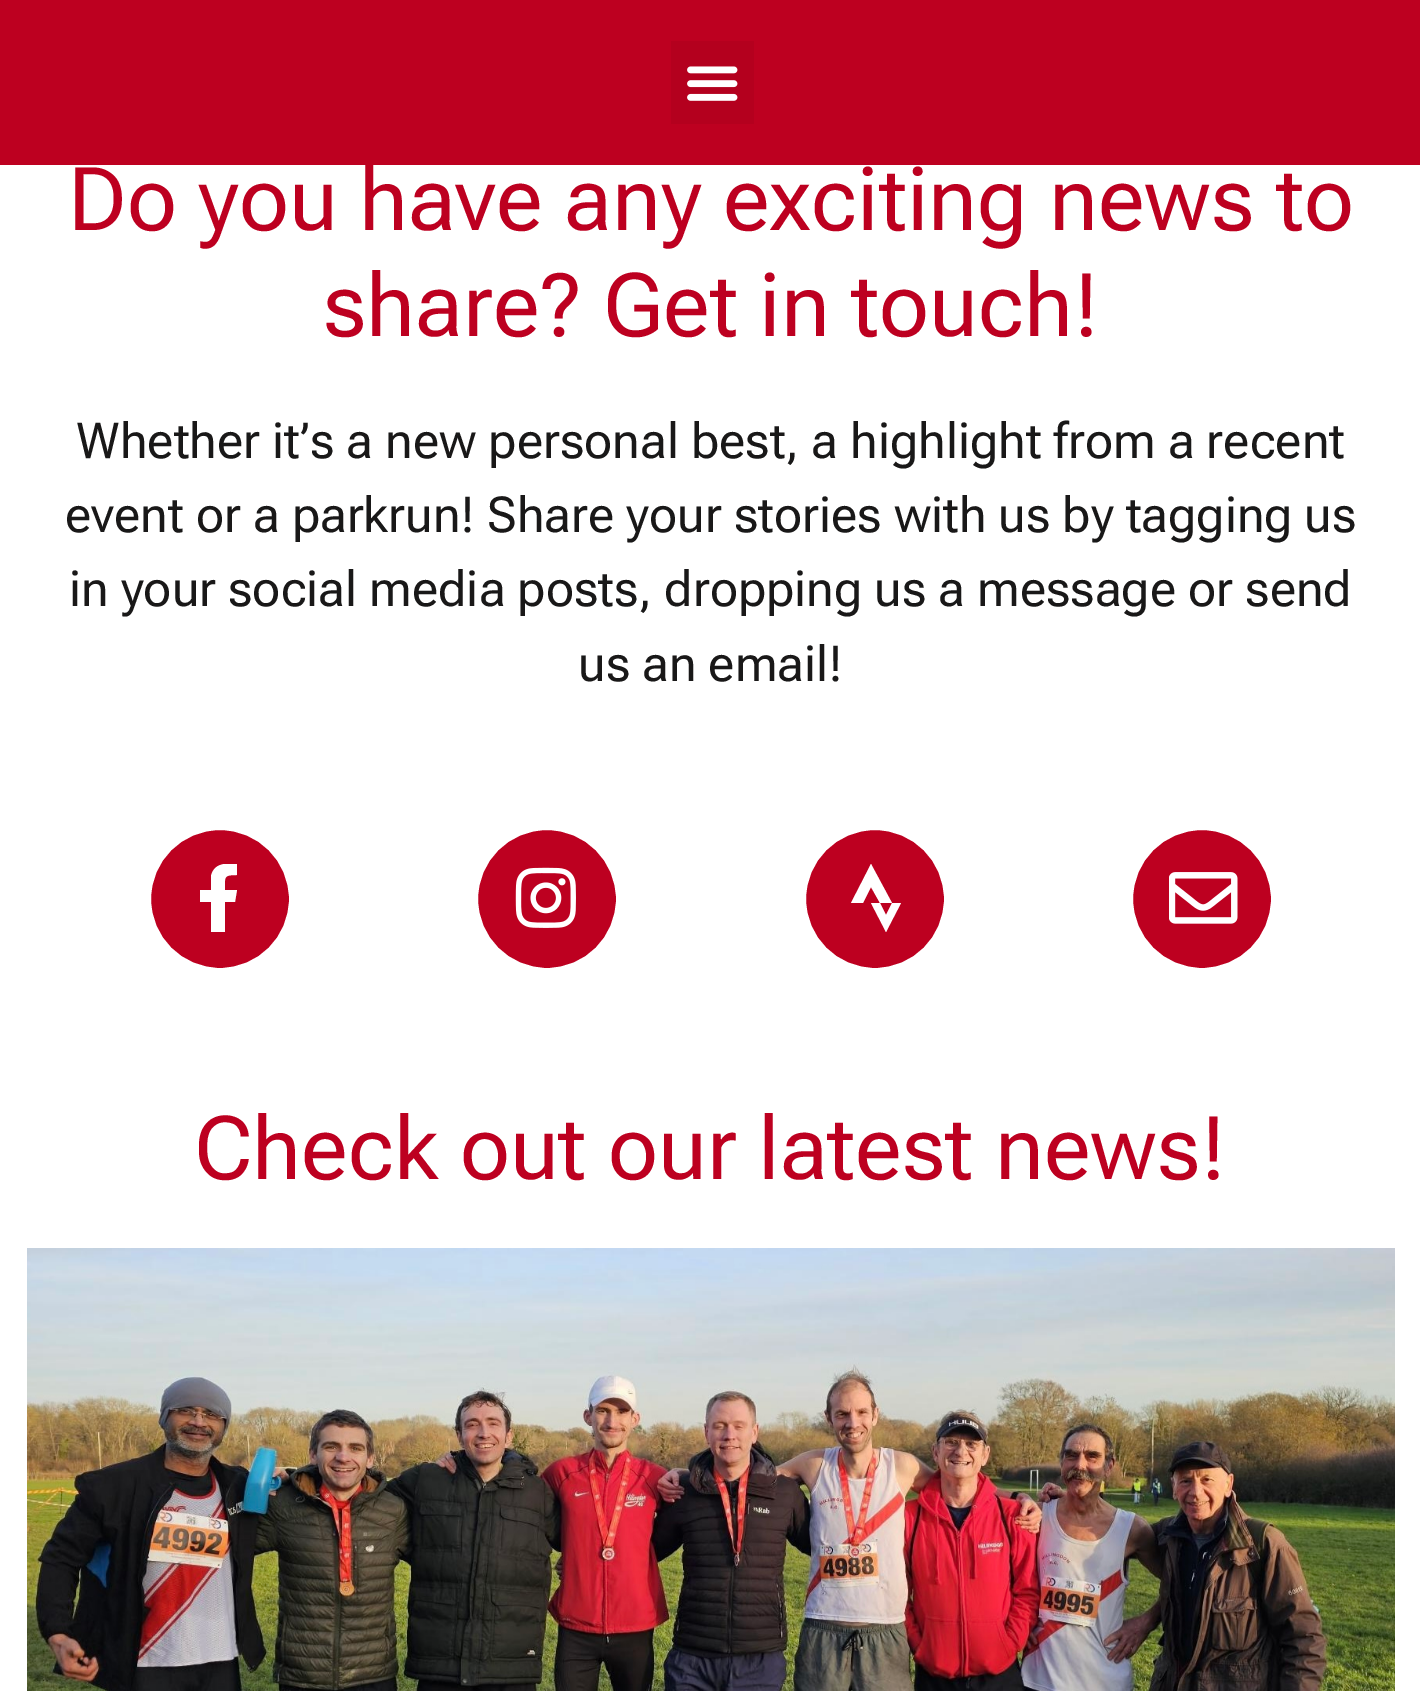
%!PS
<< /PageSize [1420 1691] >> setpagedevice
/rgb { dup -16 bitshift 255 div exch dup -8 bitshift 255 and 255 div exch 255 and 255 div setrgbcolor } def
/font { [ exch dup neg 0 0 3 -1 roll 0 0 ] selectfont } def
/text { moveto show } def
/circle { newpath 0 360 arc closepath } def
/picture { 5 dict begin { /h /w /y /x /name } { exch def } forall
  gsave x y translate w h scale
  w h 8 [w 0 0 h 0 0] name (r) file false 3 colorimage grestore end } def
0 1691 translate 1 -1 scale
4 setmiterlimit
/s1 { /RobotoFlex-Regular 88 font 16#BD0020 rgb } def
/s2 { /RobotoFlex-Regular 49.5 font 16#191818 rgb } def
16#FFFFFF rgb
0 0 1420 1691 rectfill
16#BD0020 rgb
0 0 1420 165 rectfill
16#B4001E rgb
671 41 83 83 rectfill
(pic1.raw) 687 66 51 35 picture
s1
(Do you have any exciting news to) 68 230 text
(share? Get in touch!) 323 336 text
s2
(Whether it’s a new personal best, a highlight from a recent) 76 458 text
(event or a parkrun! Share your stories with us by tagging us) 65 532 text
(in your social media posts, dropping us a message or send) 69 606 text
(us an email!) 578 681 text
16#BD0020 rgb
220 899 73 circle gsave fill grestore
16#FFFFFF rgb
8 setlinewidth
stroke
gsave
184 864 69 68 rectclip
235 902 moveto 237 890 lineto 225 890 lineto 225 877 223 875 237 875 curveto 237 864 lineto 226 863 214 863 211 876 curveto 211 890 lineto 200 890 lineto 200 902 lineto 211 902 lineto 211 932 lineto 225 932 lineto 225 902 lineto closepath fill
grestore
16#BD0020 rgb
547 899 73 circle gsave fill grestore
16#FFFFFF rgb
stroke
(pic2.raw) 515 867 61 61 picture
16#BD0020 rgb
875 899 73 circle gsave fill grestore
16#FFFFFF rgb
stroke
871 864 moveto 851 903 lineto 863 903 lineto 871 887 lineto 880 903 lineto 892 903 lineto closepath 892 903 moveto 886 915 lineto 880 903 lineto 871 903 lineto 886 932 lineto 901 903 lineto closepath fill
16#BD0020 rgb
1202 899 73 circle gsave fill grestore
16#FFFFFF rgb
stroke
(pic3.raw) 1169 872 69 52 picture
s1
(Check out our latest news!) 194 1179 text
(pic4.raw) 27 1248 1368 443 picture
showpage
